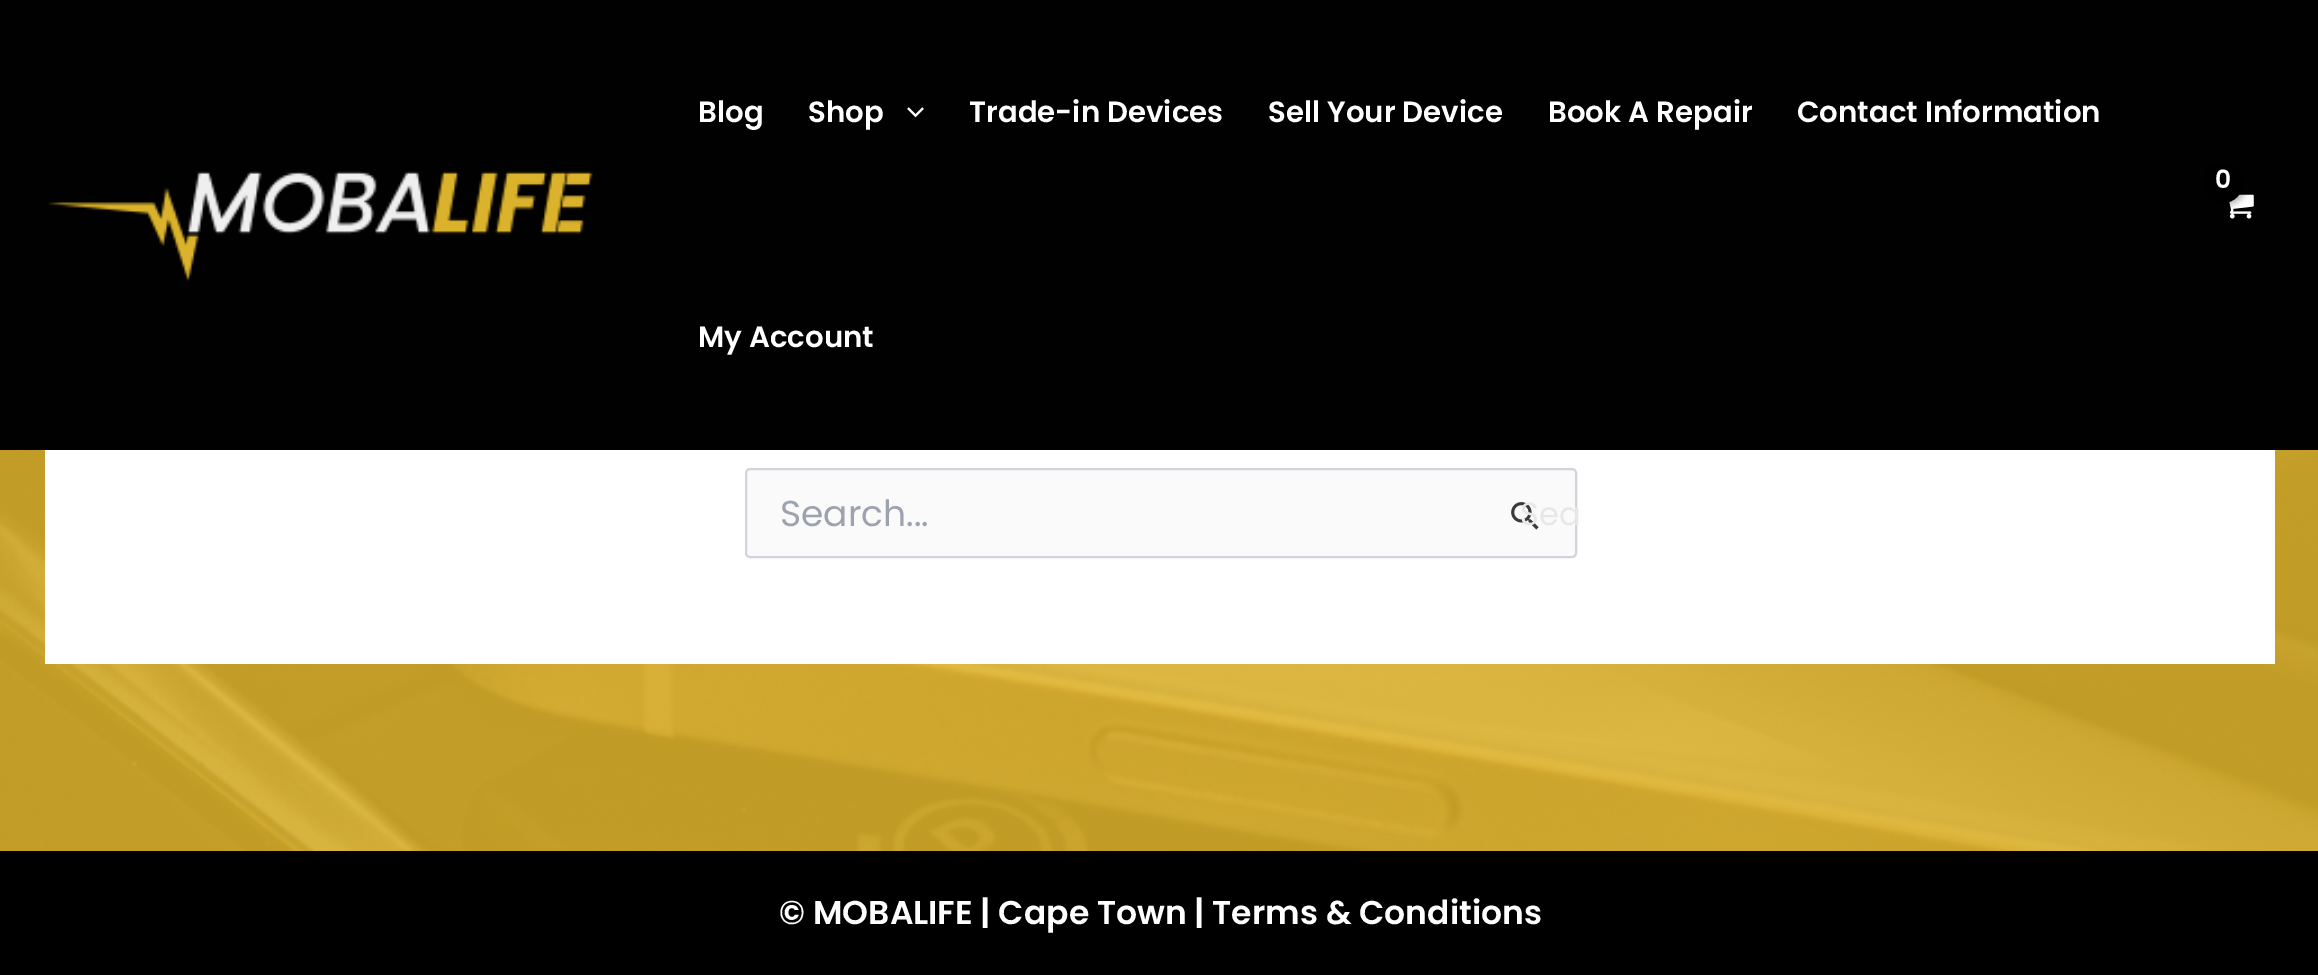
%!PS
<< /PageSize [2318 975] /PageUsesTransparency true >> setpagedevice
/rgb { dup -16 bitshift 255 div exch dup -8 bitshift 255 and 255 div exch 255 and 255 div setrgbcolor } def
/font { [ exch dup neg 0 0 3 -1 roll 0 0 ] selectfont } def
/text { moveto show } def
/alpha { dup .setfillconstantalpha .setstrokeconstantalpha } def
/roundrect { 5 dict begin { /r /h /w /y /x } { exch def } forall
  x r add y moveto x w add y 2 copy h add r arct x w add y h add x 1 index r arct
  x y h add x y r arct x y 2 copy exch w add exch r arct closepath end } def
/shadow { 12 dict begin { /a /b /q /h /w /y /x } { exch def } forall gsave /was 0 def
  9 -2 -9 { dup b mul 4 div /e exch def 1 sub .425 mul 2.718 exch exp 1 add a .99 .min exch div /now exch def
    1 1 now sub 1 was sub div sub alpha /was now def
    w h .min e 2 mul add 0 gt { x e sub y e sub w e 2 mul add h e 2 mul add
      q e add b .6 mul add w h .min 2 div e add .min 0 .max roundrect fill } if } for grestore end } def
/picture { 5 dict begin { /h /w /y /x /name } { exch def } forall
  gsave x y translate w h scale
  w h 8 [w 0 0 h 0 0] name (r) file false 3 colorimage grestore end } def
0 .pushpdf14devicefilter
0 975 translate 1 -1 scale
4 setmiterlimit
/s1 { /Poppins-SemiBold 29.25 font 16#FFFFFF rgb } def
/s2 { /Poppins-Regular 36 font 16#9CA3AF rgb } def
/s3 { /Poppins-Regular 32 font 16#E7E7E7 rgb } def
/s4 { /Poppins-SemiBold 33 font 16#FFFFFF rgb } def
16#FFFFFF rgb
0 0 2318 975 rectfill
(pic1.raw) 0 450 2318 401 picture
16#010101 rgb
0 0 2318 450 rectfill
(pic2.raw) 48 171 545 111 picture
s1
(Blog) 698 122 text
(Shop) 808 122 text
(pic3.raw) 907 107 17 11 picture
(Trade-in Devices) 969 122 text
(Sell Your Device) 1268 122 text
(Book A Repair) 1548 122 text
(Contact Information) 1797 122 text
(My Account) 698 347 text
(pic4.raw) 2229 194 25 25 picture
16#000000 rgb
2205 164 41 41 20.5 3.5 0.3 shadow
2203 162 40 41 20 roundrect fill
/Poppins-SemiBold 25 font
16#FFFFFF rgb
2215 188 moveto -1 0 (0) ashow
45 450 2230 214 rectfill
16#FAFAFA rgb
746 469 830 88 4 roundrect gsave fill grestore
16#D1D5DB rgb
2 setlinewidth
stroke
s2
(Search...) 780 526 text
(pic5.raw) 1511 502 28 28 picture
s3
(Sea) 1520 525 text
16#000000 rgb
0 851 2318 124 rectfill
s4
(© MOBALIFE | Cape Town | Terms & Conditions) 779 924 text
.poppdf14devicefilter showpage
